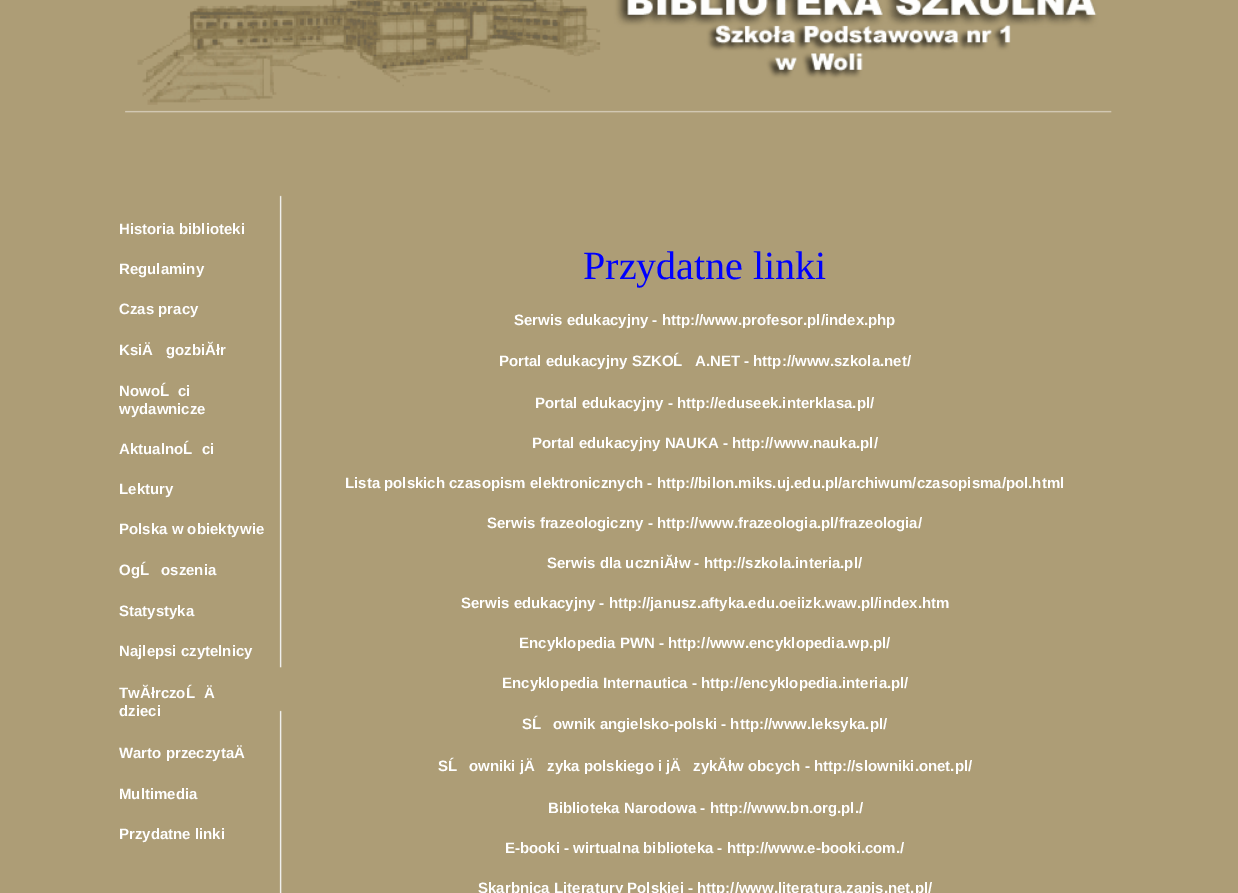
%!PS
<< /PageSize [1238 893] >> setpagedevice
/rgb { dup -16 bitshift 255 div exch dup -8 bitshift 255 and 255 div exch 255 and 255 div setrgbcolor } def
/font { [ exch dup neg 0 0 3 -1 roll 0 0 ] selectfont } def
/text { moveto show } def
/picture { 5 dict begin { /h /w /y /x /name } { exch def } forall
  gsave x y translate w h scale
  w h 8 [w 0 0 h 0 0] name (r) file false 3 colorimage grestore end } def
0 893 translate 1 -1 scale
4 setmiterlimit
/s1 { /LiberationSans-Bold 15 font 16#FFFFFF rgb } def
/s2 { /LiberationSerif-Regular 40 font 16#0000FF rgb } def
16#AD9D76 rgb
0 0 1238 893 rectfill
(pic1.raw) 125 0 987 113 picture
s1
(Historia biblioteki) 119 234 text
(Regulaminy) 119 274 text
(Czas pracy) 119 314 text
(KsiÄ) 119 355 text
(gozbiĂłr) 166 355 text
(NowoĹ) 119 396 text
(ci) 178 396 text
(wydawnicze) 119 414 text
(AktualnoĹ) 119 454 text
(ci) 202 454 text
(Lektury) 119 494 text
(Polska w obiektywie) 119 534 text
(OgĹ) 119 575 text
(oszenia) 161 575 text
(Statystyka) 119 616 text
(Najlepsi czytelnicy) 119 656 text
(TwĂłrczoĹ) 119 698 text
(Ä) 204 698 text
(dzieci) 119 716 text
(Warto przeczytaÄ) 119 758 text
(Multimedia) 119 799 text
(Przydatne linki) 119 839 text
(pic2.raw) 279 195 3 698 picture
s2
(Przydatne linki) 583 279 text
s1
(Serwis edukacyjny - http://www.profesor.pl/index.php) 514 325 text
(Portal edukacyjny SZKOĹ) 499 366 text
(A.NET - http://www.szkola.net/) 695 366 text
(Portal edukacyjny - http://eduseek.interklasa.pl/) 535 408 text
(Portal edukacyjny NAUKA - http://www.nauka.pl/) 532 448 text
(Lista polskich czasopism elektronicznych - http://bilon.miks.uj.edu.pl/archiwum/czasopisma/pol.html) 345 488 text
(Serwis frazeologiczny - http://www.frazeologia.pl/frazeologia/) 487 528 text
(Serwis dla uczniĂłw - http://szkola.interia.pl/) 547 568 text
(Serwis edukacyjny - http://janusz.aftyka.edu.oeiizk.waw.pl/index.htm) 461 608 text
(Encyklopedia PWN - http://www.encyklopedia.wp.pl/) 519 648 text
(Encyklopedia Internautica - http://encyklopedia.interia.pl/) 502 688 text
(SĹ) 522 729 text
(ownik angielsko-polski - http://www.leksyka.pl/) 553 729 text
(SĹ) 438 771 text
(owniki jÄ) 469 771 text
(zyka polskiego i jÄ) 547 771 text
(zykĂłw obcych - http://slowniki.onet.pl/) 693 771 text
(Biblioteka Narodowa - http://www.bn.org.pl./) 548 813 text
(E-booki - wirtualna biblioteka - http://www.e-booki.com./) 505 853 text
(Skarbnica Literatury Polskiej - http://www.literatura.zapis.net.pl/) 478 893 text
showpage
